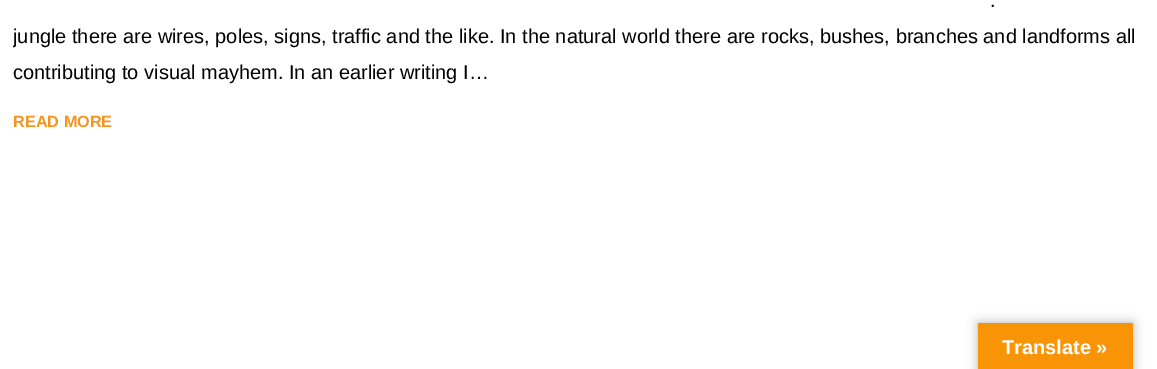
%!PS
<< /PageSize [1157 369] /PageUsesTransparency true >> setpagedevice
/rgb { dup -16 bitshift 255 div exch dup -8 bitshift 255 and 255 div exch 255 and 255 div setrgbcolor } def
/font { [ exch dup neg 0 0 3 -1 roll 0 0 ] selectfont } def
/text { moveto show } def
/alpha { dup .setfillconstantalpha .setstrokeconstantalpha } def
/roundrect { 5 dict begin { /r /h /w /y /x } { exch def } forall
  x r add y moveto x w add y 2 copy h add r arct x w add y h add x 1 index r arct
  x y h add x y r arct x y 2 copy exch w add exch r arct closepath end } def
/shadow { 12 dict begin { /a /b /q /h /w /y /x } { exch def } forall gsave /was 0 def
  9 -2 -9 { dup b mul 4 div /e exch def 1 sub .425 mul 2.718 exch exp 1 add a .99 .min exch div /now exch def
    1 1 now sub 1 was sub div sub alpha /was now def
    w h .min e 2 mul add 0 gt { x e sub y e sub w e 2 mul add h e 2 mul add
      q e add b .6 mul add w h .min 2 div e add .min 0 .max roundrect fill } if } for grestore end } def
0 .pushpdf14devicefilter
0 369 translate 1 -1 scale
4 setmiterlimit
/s1 { /LiberationSans-Regular 20 font 16#000000 rgb } def
/s2 { /LiberationSans-Bold 16.25 font 16#F59421 rgb } def
/s3 { /LiberationSans-Bold 20 font 16#FFFFFF rgb } def
16#FFFFFF rgb
0 0 1157 369 rectfill
s1
(.) 990 7 text
gsave
13 0 1132 190 rectclip
(jungle there are wires, poles, signs, traffic and the like. In the natural world there are rocks, bushes, branches and landforms all) 13 43 text
grestore
(contributing to visual mayhem. In an earlier writing I…) 13 79 text
s2
(READ MORE) 13 127 text
16#000000 rgb
978 323 155 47 0 5.5 0.3 shadow
16#F89406 rgb
978 323 155 46 rectfill
s3
(Translate ») 1002 354 text
.poppdf14devicefilter showpage
